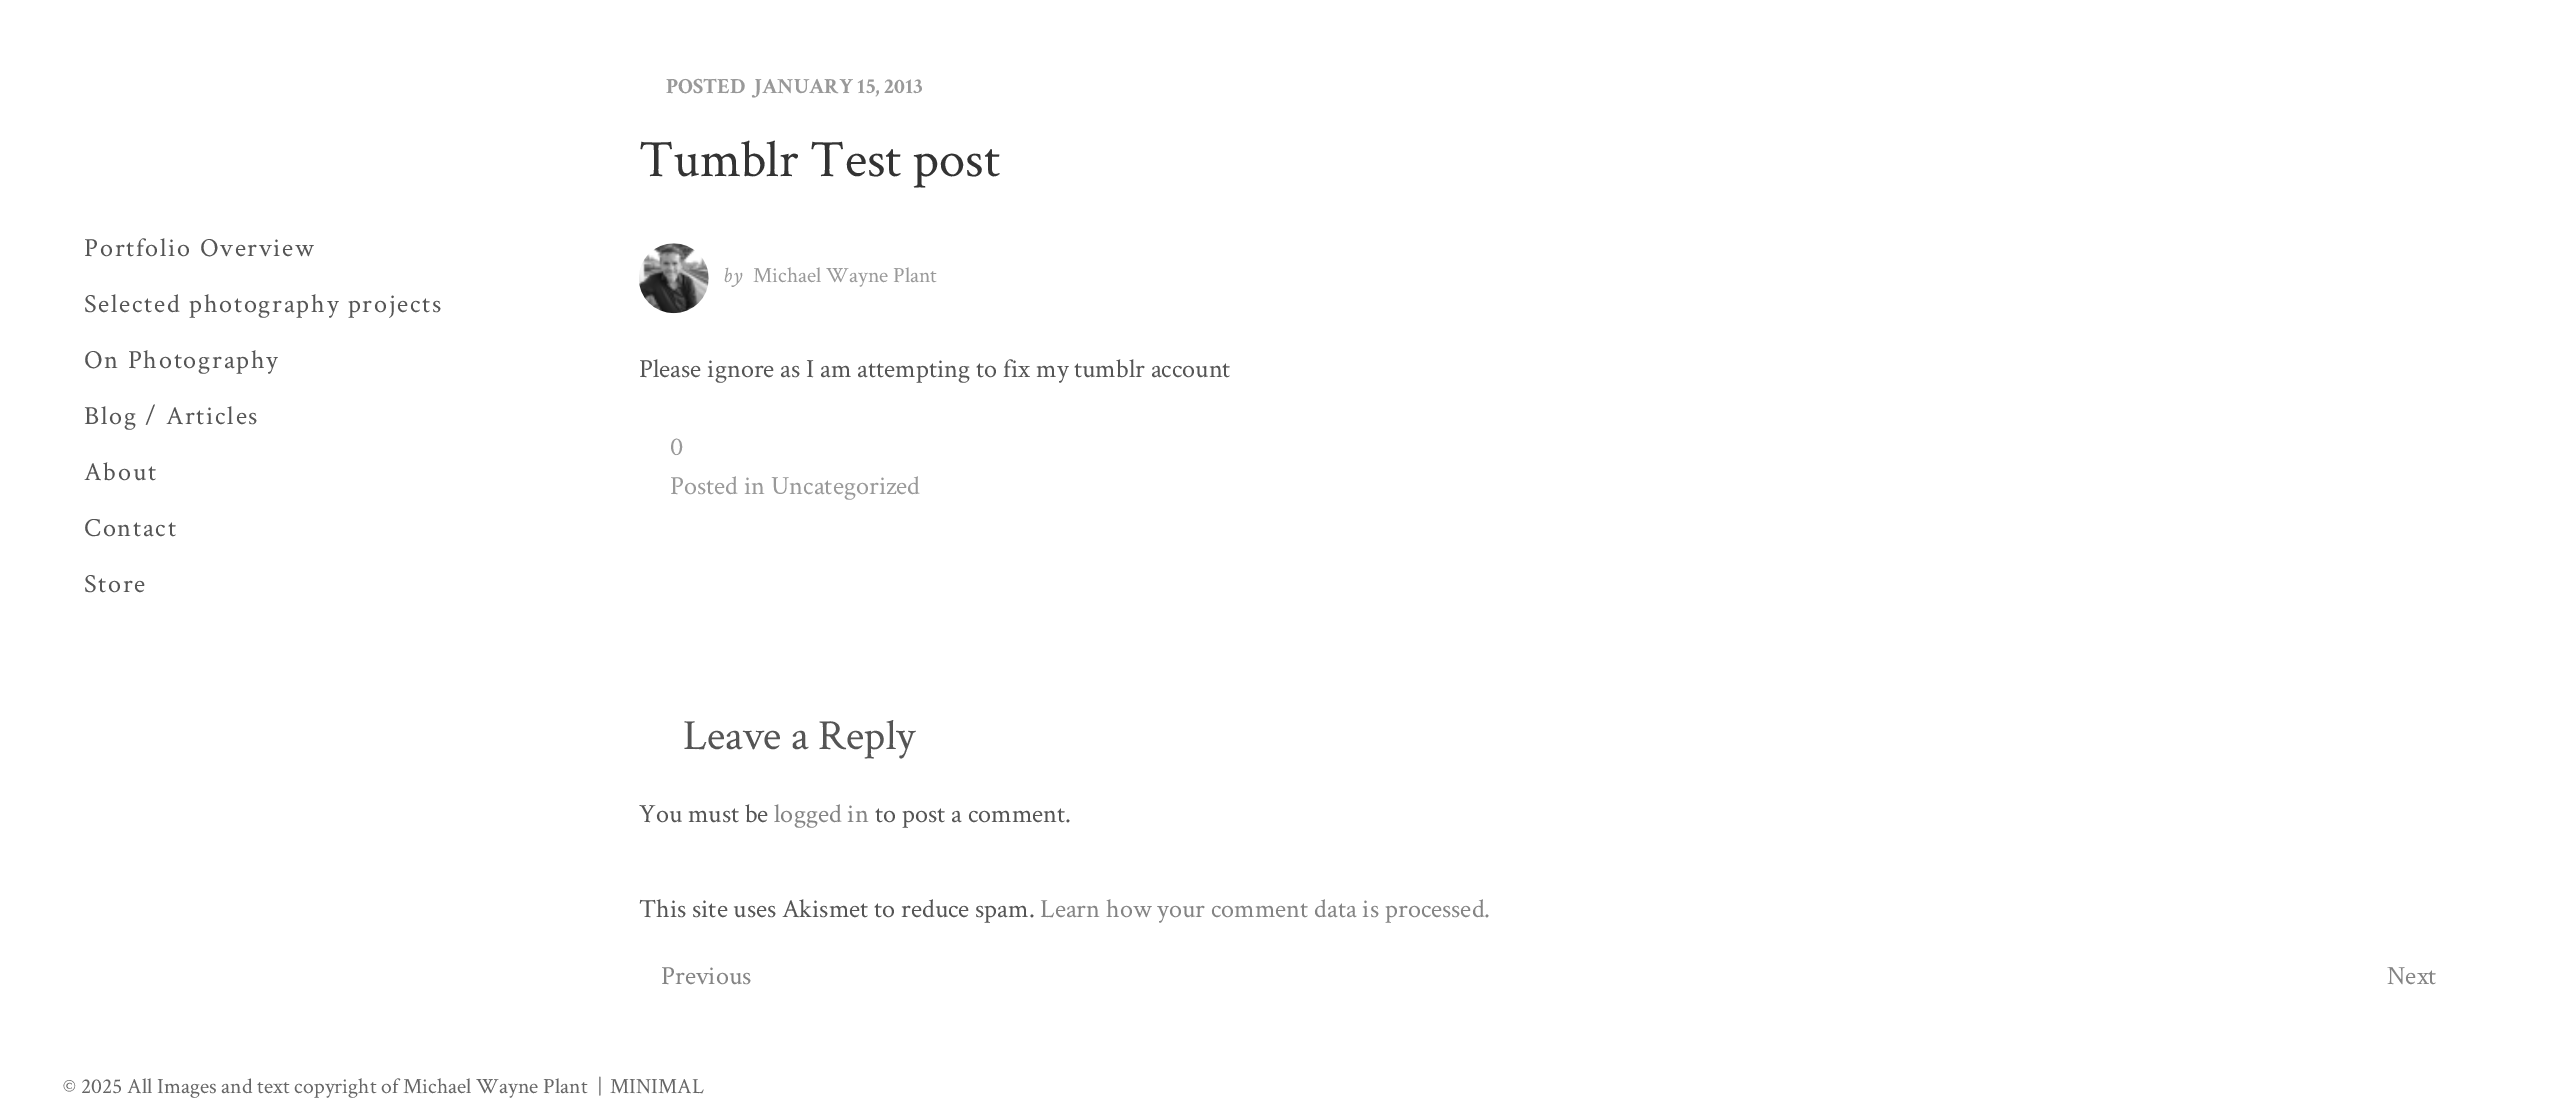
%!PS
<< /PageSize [2554 1116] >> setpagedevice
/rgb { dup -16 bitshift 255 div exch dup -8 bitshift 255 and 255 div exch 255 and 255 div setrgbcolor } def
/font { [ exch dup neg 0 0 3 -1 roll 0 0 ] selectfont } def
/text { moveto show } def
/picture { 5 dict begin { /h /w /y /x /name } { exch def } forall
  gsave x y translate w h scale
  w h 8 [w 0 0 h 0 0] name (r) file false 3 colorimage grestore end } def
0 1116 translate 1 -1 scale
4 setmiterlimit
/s1 { /CrimsonText-Bold 21.7 font 16#999999 rgb } def
/s2 { /CrimsonText-Regular 52.5 font 16#333333 rgb } def
/s3 { /CrimsonText-Italic 21.7 font 16#999999 rgb } def
/s4 { /CrimsonText-Regular 21.7 font 16#999999 rgb } def
/s5 { /CrimsonText-Regular 26.25 font 16#555555 rgb } def
/s6 { /CrimsonText-Regular 26.25 font 16#999999 rgb } def
/s7 { /CrimsonText-Regular 43 font 16#555555 rgb } def
/s8 { /CrimsonText-Regular 26.25 font 16#848484 rgb } def
/s9 { /CrimsonText-Regular 21.7 font 16#666666 rgb } def
16#FFFFFF rgb
0 0 2554 1116 rectfill
/CrimsonText-Regular 26.25 font
16#555555 rgb
84 256 moveto 1.75 0 (Portfolio Overview) ashow
84 312 moveto 1.75 0 (Selected photography projects) ashow
84 368 moveto 1.75 0 (On Photography) ashow
84 424 moveto 1.75 0 (Blog / Articles) ashow
84 480 moveto 1.75 0 (About) ashow
84 536 moveto 1.75 0 (Contact) ashow
84 592 moveto 1.75 0 (Store) ashow
s1
(POSTED) 666 93 text
(JANUARY 15, 2013) 754 93 text
s2
(Tumblr Test post) 639 176 text
(pic1.raw) 639 243 70 71 picture
s3
(by) 723 282 text
s4
(Michael Wayne Plant) 753 282 text
s5
(Please ignore as I am attempting to fix my tumblr account) 639 377 text
s6
(0) 670 455 text
(Posted in Uncategorized) 670 494 text
s7
(Leave a Reply) 683 749 text
s5
(You must be) 639 822 text
s8
(logged in) 774 822 text
s5
(to post a comment.) 875 822 text
(This site uses Akismet to reduce spam.) 639 917 text
s8
(Learn how your comment data is processed.) 1040 917 text
(Previous) 661 984 text
(Next) 2387 984 text
s9
(© 2025 All Images and text copyright of Michael Wayne Plant) 63 1093 text
(|) 597 1093 text
(MINIMAL) 610 1093 text
showpage
